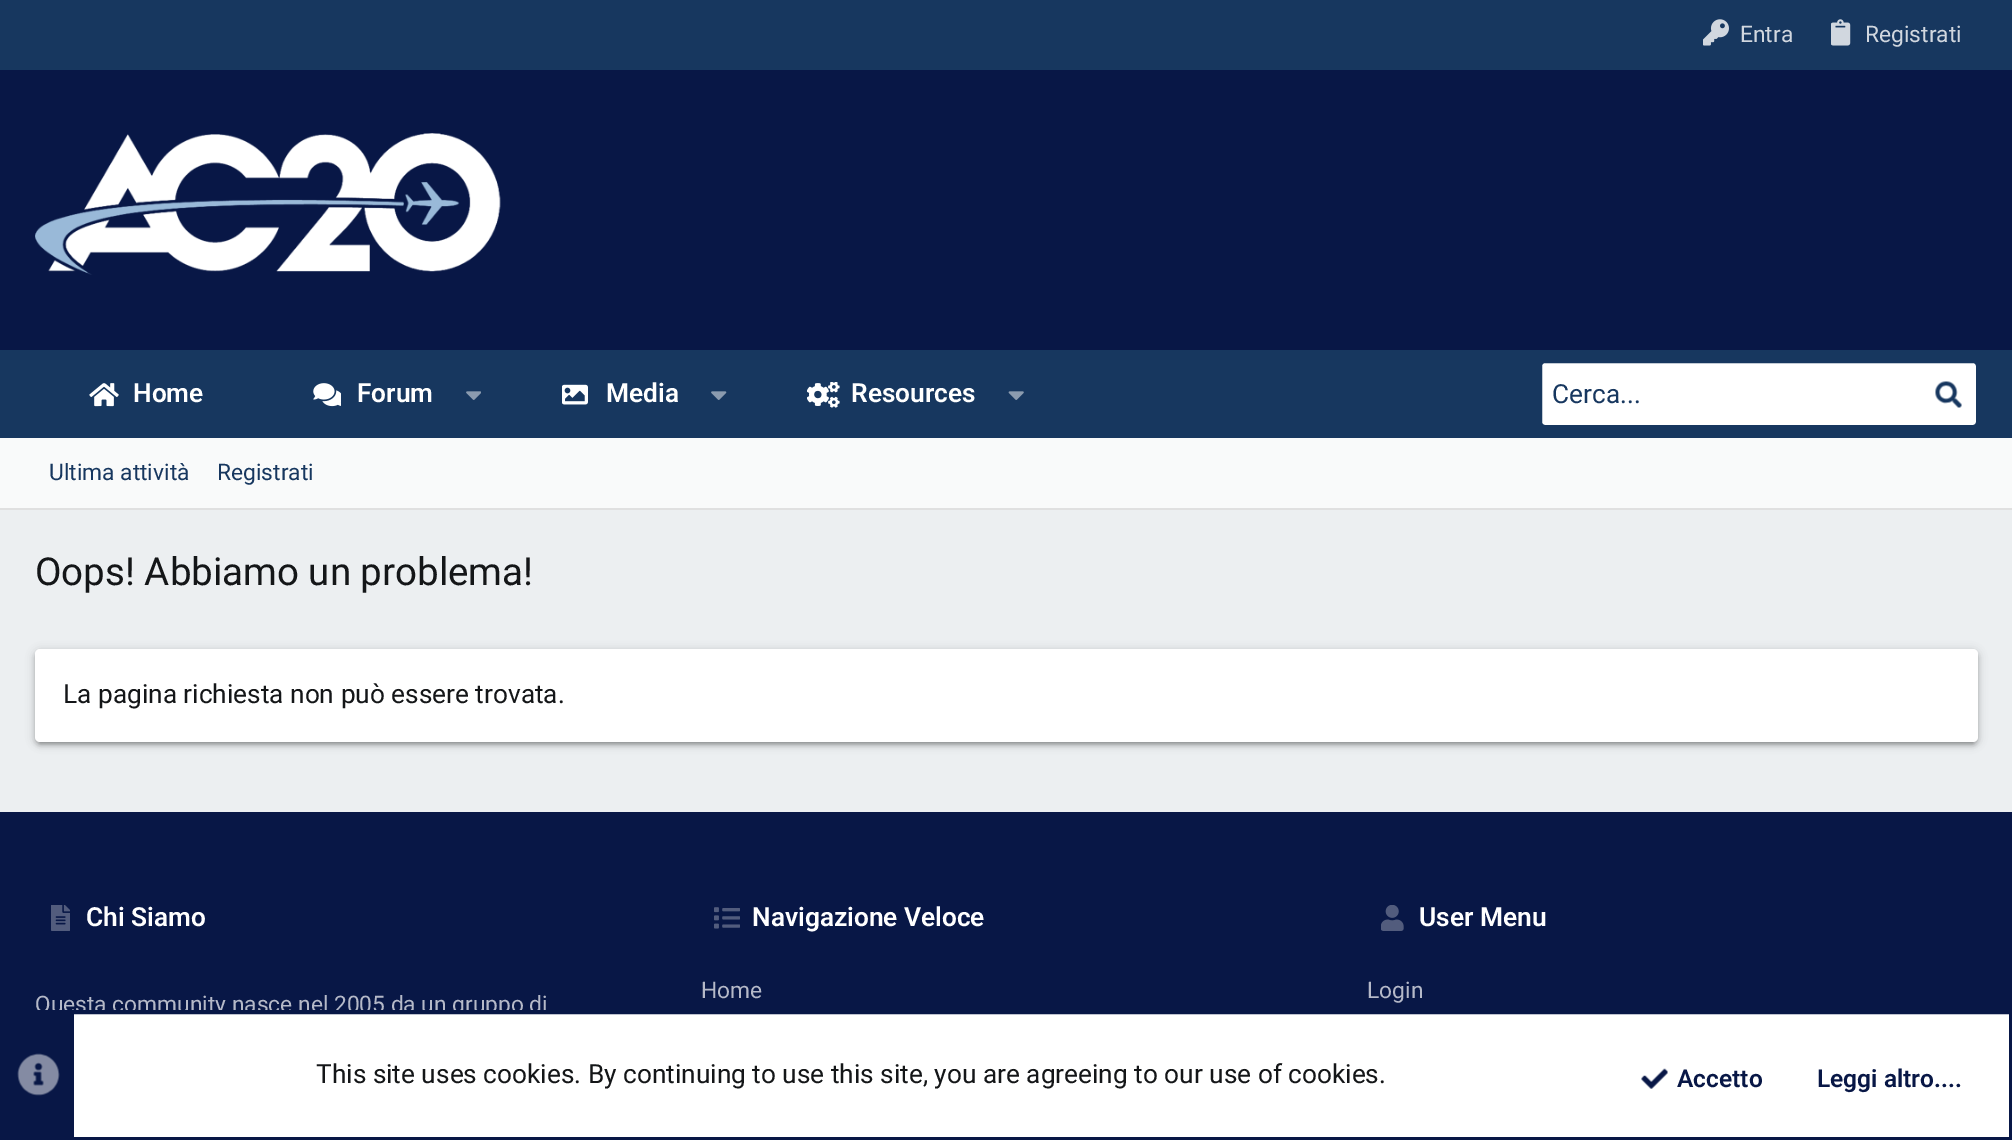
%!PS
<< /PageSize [2012 1140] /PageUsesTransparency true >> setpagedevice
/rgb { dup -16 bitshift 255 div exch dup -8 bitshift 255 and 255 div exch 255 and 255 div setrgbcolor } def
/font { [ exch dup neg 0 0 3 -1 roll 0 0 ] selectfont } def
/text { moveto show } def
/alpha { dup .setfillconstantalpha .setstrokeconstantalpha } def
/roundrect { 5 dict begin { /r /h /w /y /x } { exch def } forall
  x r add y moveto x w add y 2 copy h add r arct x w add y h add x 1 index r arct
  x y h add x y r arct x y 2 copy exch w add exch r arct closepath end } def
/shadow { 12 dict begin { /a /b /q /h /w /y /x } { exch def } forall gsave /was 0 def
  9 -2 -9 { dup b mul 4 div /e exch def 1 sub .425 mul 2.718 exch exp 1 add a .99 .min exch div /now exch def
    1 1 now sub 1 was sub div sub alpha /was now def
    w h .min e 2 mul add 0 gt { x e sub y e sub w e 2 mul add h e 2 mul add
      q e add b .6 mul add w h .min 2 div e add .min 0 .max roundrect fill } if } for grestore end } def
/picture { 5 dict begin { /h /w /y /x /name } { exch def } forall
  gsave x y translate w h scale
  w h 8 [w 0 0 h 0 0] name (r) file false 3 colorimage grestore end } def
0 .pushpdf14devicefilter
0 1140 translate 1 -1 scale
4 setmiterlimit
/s1 { /Roboto-Regular 22.75 font 16#D1D7DF rgb } def
/s2 { /Roboto-SemiBold 26.25 font 16#FFFFFF rgb } def
/s3 { /Roboto-Regular 26.25 font 16#17375F rgb } def
/s4 { /Roboto-Regular 22.75 font 16#17375F rgb } def
/s5 { /Roboto-Regular 38.5 font 16#141618 rgb } def
/s6 { /Roboto-Regular 26.25 font 16#141618 rgb } def
/s7 { /Roboto-Regular 22.75 font 16#B5B9C8 rgb } def
/s8 { /Roboto-SemiBold 24.5 font 16#081746 rgb } def
16#ECEFF1 rgb
0 0 2012 1140 rectfill
16#17375F rgb
0 0 2012 70 rectfill
(pic1.raw) 1703 19 26 27 picture
s1
(Entra) 1740 42 text
(pic2.raw) 1831 19 20 27 picture
(Registrati) 1865 42 text
16#081746 rgb
0 70 2012 280 rectfill
(pic3.raw) 35 133 466 142 picture
16#17375F rgb
0 350 2012 88 rectfill
(pic4.raw) 89 383 30 24 picture
s2
(Home) 133 402 text
(pic5.raw) 313 383 28 24 picture
(Forum) 357 402 text
(pic6.raw) 466 391 15 9 picture
(pic7.raw) 562 384 26 21 picture
(Media) 606 402 text
(pic8.raw) 711 391 16 9 picture
(pic9.raw) 807 382 33 26 picture
(Resources) 851 402 text
(pic10.raw) 1008 391 16 9 picture
1541 362 436 64 4 roundrect gsave fill grestore
16#17375F rgb
2 setlinewidth
stroke
s3
(Cerca...) 1552 403 text
(pic11.raw) 1935 381 27 27 picture
16#F9FAFA rgb
0 438 2012 70 rectfill
16#E0E0E0 rgb
0 508 2012 2 rectfill
s4
(Ultima attività) 49 480 text
(Registrati) 217 480 text
s5
(Oops! Abbiamo un problema!) 35 585 text
16#000000 rgb
35 651 1943 93 5 4.5 0.2 shadow
39 658 1935 86 2 1 0.12 shadow
35 653 1943 93 5 2 0.14 shadow
16#FFFFFF rgb
35 649 1943 93 5 roundrect fill
s6
(La pagina richiesta non può essere trovata.) 63 703 text
16#081746 rgb
0 812 2012 198 rectfill
(pic12.raw) 51 905 19 26 picture
s2
(Chi Siamo) 86 926 text
s7
(Questa community nasce nel 2005 da un gruppo di) 35 1012 text
(pic13.raw) 714 907 26 22 picture
s2
(Navigazione Veloce) 752 926 text
s7
(Home) 701 998 text
(pic14.raw) 1381 905 23 26 picture
s2
(User Menu) 1419 926 text
s7
(Login) 1367 998 text
16#FFFFFF rgb
74 1014 1935 123 rectfill
16#081746 rgb
4 setlinewidth
2 1012 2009 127 rectstroke
4 1014 70 123 rectfill
(pic15.raw) 17 1053 43 43 picture
s6
(This site uses cookies. By continuing to use this site, you are agreeing to our use of cookies.) 316 1083 text
(pic16.raw) 1641 1068 27 21 picture
s8
(Accetto) 1677 1087 text
(Leggi altro....) 1817 1087 text
.poppdf14devicefilter showpage
